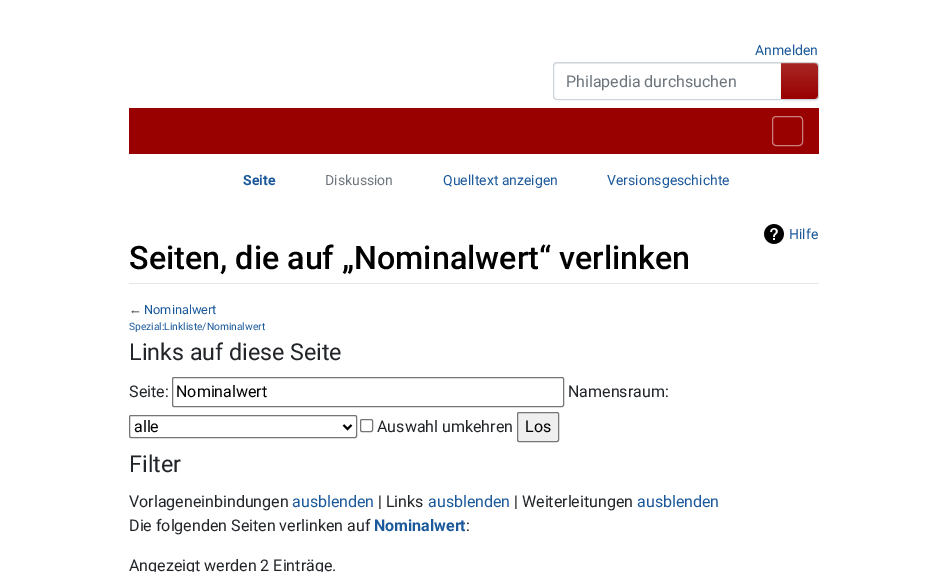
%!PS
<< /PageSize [947 572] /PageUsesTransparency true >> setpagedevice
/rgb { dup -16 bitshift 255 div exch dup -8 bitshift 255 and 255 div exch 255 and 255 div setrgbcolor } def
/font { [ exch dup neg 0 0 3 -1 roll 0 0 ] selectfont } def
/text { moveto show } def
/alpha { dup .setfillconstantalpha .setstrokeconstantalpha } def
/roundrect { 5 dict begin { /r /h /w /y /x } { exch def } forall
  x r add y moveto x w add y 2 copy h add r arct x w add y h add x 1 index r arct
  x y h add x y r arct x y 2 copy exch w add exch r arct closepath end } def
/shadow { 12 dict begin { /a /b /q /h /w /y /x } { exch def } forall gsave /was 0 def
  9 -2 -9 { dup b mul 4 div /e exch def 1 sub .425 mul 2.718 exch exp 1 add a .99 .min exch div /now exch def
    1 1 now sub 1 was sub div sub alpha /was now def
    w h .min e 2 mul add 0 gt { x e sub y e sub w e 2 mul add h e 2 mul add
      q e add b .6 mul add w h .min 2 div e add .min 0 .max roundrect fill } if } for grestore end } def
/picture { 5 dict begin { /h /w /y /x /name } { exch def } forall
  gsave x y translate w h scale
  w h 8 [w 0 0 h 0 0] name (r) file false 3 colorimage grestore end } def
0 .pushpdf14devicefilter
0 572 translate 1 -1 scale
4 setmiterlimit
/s1 { /Roboto-Regular 14 font 16#1B599B rgb } def
/s2 { /Roboto-Regular 16 font 16#6C757D rgb } def
/s3 { /Roboto-Bold 14 font 16#1B599B rgb } def
/s4 { /Roboto-Regular 14 font 16#6C757D rgb } def
/s5 { /Roboto-Medium 32.3 font 16#000000 rgb } def
/s6 { /LiberationSans-Regular 12.75 font 16#212529 rgb } def
/s7 { /Roboto-Regular 12.75 font 16#1B599B rgb } def
/s8 { /Roboto-Regular 10.25 font 16#1B599B rgb } def
/s9 { /Roboto-Regular 23.25 font 16#212529 rgb } def
/s10 { /Roboto-Regular 16 font 16#212529 rgb } def
/s11 { /Roboto-Regular 16 font 16#000000 rgb } def
/s12 { /Roboto-Regular 16 font 16#1B599B rgb } def
/s13 { /Roboto-Bold 16 font 16#1B599B rgb } def
16#FFFFFF rgb
0 0 947 572 rectfill
s1
(Anmelden) 755 55 text
16#ECECEC rgb
557 64 moveto 781 64 lineto 781 63 lineto 557 63 lineto 555 63 554 65 554 67 curveto 554 65 555 64 557 64 curveto closepath fill
16#CED4DA rgb
557 62.5 moveto 781.5 62.5 lineto 781.5 99.5 lineto 557 99.5 lineto 555 99.5 553.5 98 553.5 96 curveto 553.5 66 lineto 553.5 64 555 62.5 557 62.5 curveto closepath stroke
s2
(Philapedia durchsuchen) 566 87 text
16#000000 rgb
781 63 38 38 4 0.5 0.07 shadow
gsave 781 63 moveto 815 63 lineto 816.5 63 818 64.5 818 66 curveto 818 96 lineto 818 97.5 816.5 99 815 99 curveto 781 99 lineto closepath clip newpath
<< /ShadingType 2 /ColorSpace /DeviceRGB /Coords [800 63 800 99] /Extend [true true] /Function << /FunctionType 2 /Domain [0 1] /C0 [0.659 0.153 0.149] /C1 [0.6 0.004 0] /N 1 >> >> shfill grestore
16#B54746 rgb
781 64 moveto 815 64 lineto 817 64 818 65 818 67 curveto 818 66 lineto 818 64.5 816.5 63 815 63 curveto 781 63 lineto closepath fill
16#CED4DA rgb
781 62 moveto 815 62 lineto 817 62 819 64 819 66 curveto 819 96 lineto 819 98 817 100 815 100 curveto 781 100 lineto closepath 781 63 moveto 815 63 lineto 816.5 63 818 64.5 818 66 curveto 818 96 lineto 818 97.5 816.5 99 815 99 curveto 781 99 lineto closepath eofill
16#990100 rgb
129 108 690 46 rectfill
16#CC8080 rgb
772.5 116.5 30 29 3.5 roundrect stroke
s3
(Seite) 243 185 text
s4
(Diskussion) 325 185 text
s1
(Quelltext anzeigen) 443 185 text
(Versionsgeschichte) 607 185 text
(pic1.raw) 764 224 20 20 picture
(Hilfe) 789 239 text
16#E6E6E6 rgb
129 283 690 1 rectfill
s5
(Seiten, die auf „Nominalwert“ verlinken) 129 269 text
s6
(←) 129 314 text
s7
(Nominalwert) 144 314 text
s8
(Spezial:Linkliste/Nominalwert) 129 330 text
s9
(Links auf diese Seite) 129 360 text
s10
(Seite:) 129 397 text
16#767676 rgb
172.5 377.5 391 29 1.5 roundrect stroke
s11
(Nominalwert) 176 397 text
s10
(Namensraum:) 568 397 text
16#767676 rgb
129.5 415.5 227 22 1.5 roundrect stroke
16#000000 rgb
2 setlinewidth
343.5 425 moveto 347.5 429 lineto 351.5 425 lineto stroke
(alle) 134 432 text
16#767676 rgb
1 setlinewidth
360.5 419.5 12 12 1.5 roundrect stroke
s10
(Auswahl umkehren) 377 432 text
16#EFEFEF rgb
517.5 412.5 41 29 1.5 roundrect gsave fill grestore
16#767676 rgb
stroke
s11
(Los) 525 432 text
s9
(Filter) 129 472 text
s10
(Vorlageneinbindungen) 129 507 text
s12
(ausblenden) 292 507 text
s10
(| Links) 378 507 text
s12
(ausblenden) 428 507 text
s10
(| Weiterleitungen) 514 507 text
s12
(ausblenden) 637 507 text
s10
(Die folgenden Seiten verlinken auf) 129 531 text
s13
(Nominalwert) 374 531 text
s10
(:) 466 531 text
(Angezeigt werden 2 Einträge.) 129 571 text
.poppdf14devicefilter showpage
